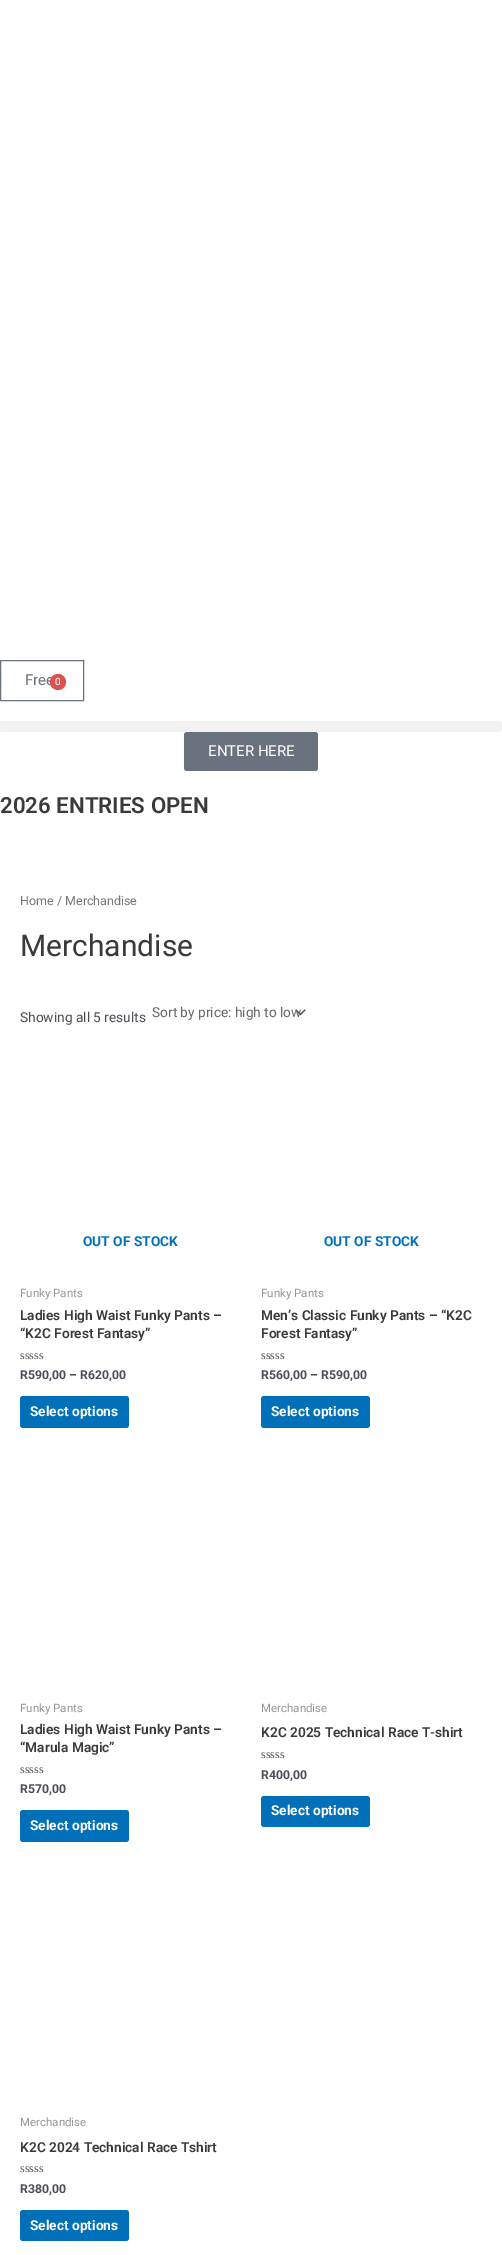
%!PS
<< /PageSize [502 2255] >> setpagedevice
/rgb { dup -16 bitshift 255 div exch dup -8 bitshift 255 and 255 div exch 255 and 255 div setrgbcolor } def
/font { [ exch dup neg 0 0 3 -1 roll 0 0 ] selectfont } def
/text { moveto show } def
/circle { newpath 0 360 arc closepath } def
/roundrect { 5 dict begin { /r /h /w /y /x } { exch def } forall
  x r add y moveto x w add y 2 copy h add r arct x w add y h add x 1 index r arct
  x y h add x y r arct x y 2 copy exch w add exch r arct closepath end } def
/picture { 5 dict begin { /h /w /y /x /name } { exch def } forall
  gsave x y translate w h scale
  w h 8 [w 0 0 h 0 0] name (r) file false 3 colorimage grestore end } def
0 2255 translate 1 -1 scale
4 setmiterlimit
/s1 { /Roboto-Regular 15 font 16#69727D rgb } def
/s2 { /Roboto-Regular 10 font 16#FFFFFF rgb } def
/s3 { /Roboto-Regular 15 font 16#FFFFFF rgb } def
/s4 { /Roboto-SemiBold 22.25 font 16#3A3A3A rgb } def
/s5 { /Roboto-Regular 12.5 font 16#777777 rgb } def
/s6 { /Roboto-Regular 30 font 16#3A3A3A rgb } def
/s7 { /Roboto-Regular 13.7 font 16#4B4F58 rgb } def
/s8 { /Roboto-Regular 13.7 font 16#666666 rgb } def
/s9 { /Roboto-Bold 13.7 font 16#0170B9 rgb } def
/s10 { /Roboto-Regular 11.5 font 16#93959B rgb } def
/s11 { /Roboto-SemiBold 13.7 font 16#3A3A3A rgb } def
/s12 { /LiberationSerif-Regular 12 font 16#4B4F58 rgb } def
/s13 { /Roboto-Bold 12.25 font 16#4B4F58 rgb } def
/s14 { /Roboto-Bold 13.7 font 16#FFFFFF rgb } def
16#FFFFFF rgb
0 0 502 2255 rectfill
16#69727D rgb
0.5 660.5 83 40 rectstroke
s1
(Free) 25 685 text
16#D9534F rgb
58 682 8 circle fill
s2
(0) 55 685 text
16#F2F2F2 rgb
0 721 502 11 3 roundrect fill
16#69727D rgb
184 732 134 39 3 roundrect fill
s3
(ENTER HERE) 208 756 text
s4
(2026 ENTRIES OPEN) 0 813 text
s5
(Home / Merchandise) 20 905 text
s6
(Merchandise) 20 956 text
s7
(Showing all 5 results) 20 1022 text
(pic1.raw) 295 1009 11 7 picture
s8
(Sort by price: high to low) 152 1017 text
s9
(OUT OF STOCK) 83 1246 text
s10
(Funky Pants) 20 1297 text
s11
(Ladies High Waist Funky Pants –) 20 1320 text
(“K2C Forest Fantasy”) 20 1338 text
s12
(sssss) 20 1359 text
s13
(R590,00 – R620,00) 20 1379 text
16#0170B9 rgb
20 1396 109 32 3 roundrect fill
s14
(Select options) 30 1416 text
s9
(OUT OF STOCK) 324 1246 text
s10
(Funky Pants) 261 1297 text
s11
(Men’s Classic Funky Pants – “K2C) 261 1320 text
(Forest Fantasy”) 261 1338 text
s12
(sssss) 261 1359 text
s13
(R560,00 – R590,00) 261 1379 text
16#0170B9 rgb
261 1396 109 32 3 roundrect fill
s14
(Select options) 271 1416 text
s10
(Funky Pants) 20 1712 text
s11
(Ladies High Waist Funky Pants –) 20 1734 text
(“Marula Magic”) 20 1752 text
s12
(sssss) 20 1773 text
s13
(R570,00) 20 1793 text
16#0170B9 rgb
20 1810 109 32 3 roundrect fill
s14
(Select options) 30 1830 text
s10
(Merchandise) 261 1712 text
s11
(K2C 2025 Technical Race T-shirt) 261 1737 text
s12
(sssss) 261 1758 text
s13
(R400,00) 261 1779 text
16#0170B9 rgb
261 1796 109 31 3 roundrect fill
s14
(Select options) 271 1815 text
s10
(Merchandise) 20 2126 text
s11
(K2C 2024 Technical Race Tshirt) 20 2152 text
s12
(sssss) 20 2172 text
s13
(R380,00) 20 2193 text
16#0170B9 rgb
20 2210 109 31 3 roundrect fill
s14
(Select options) 30 2230 text
showpage
